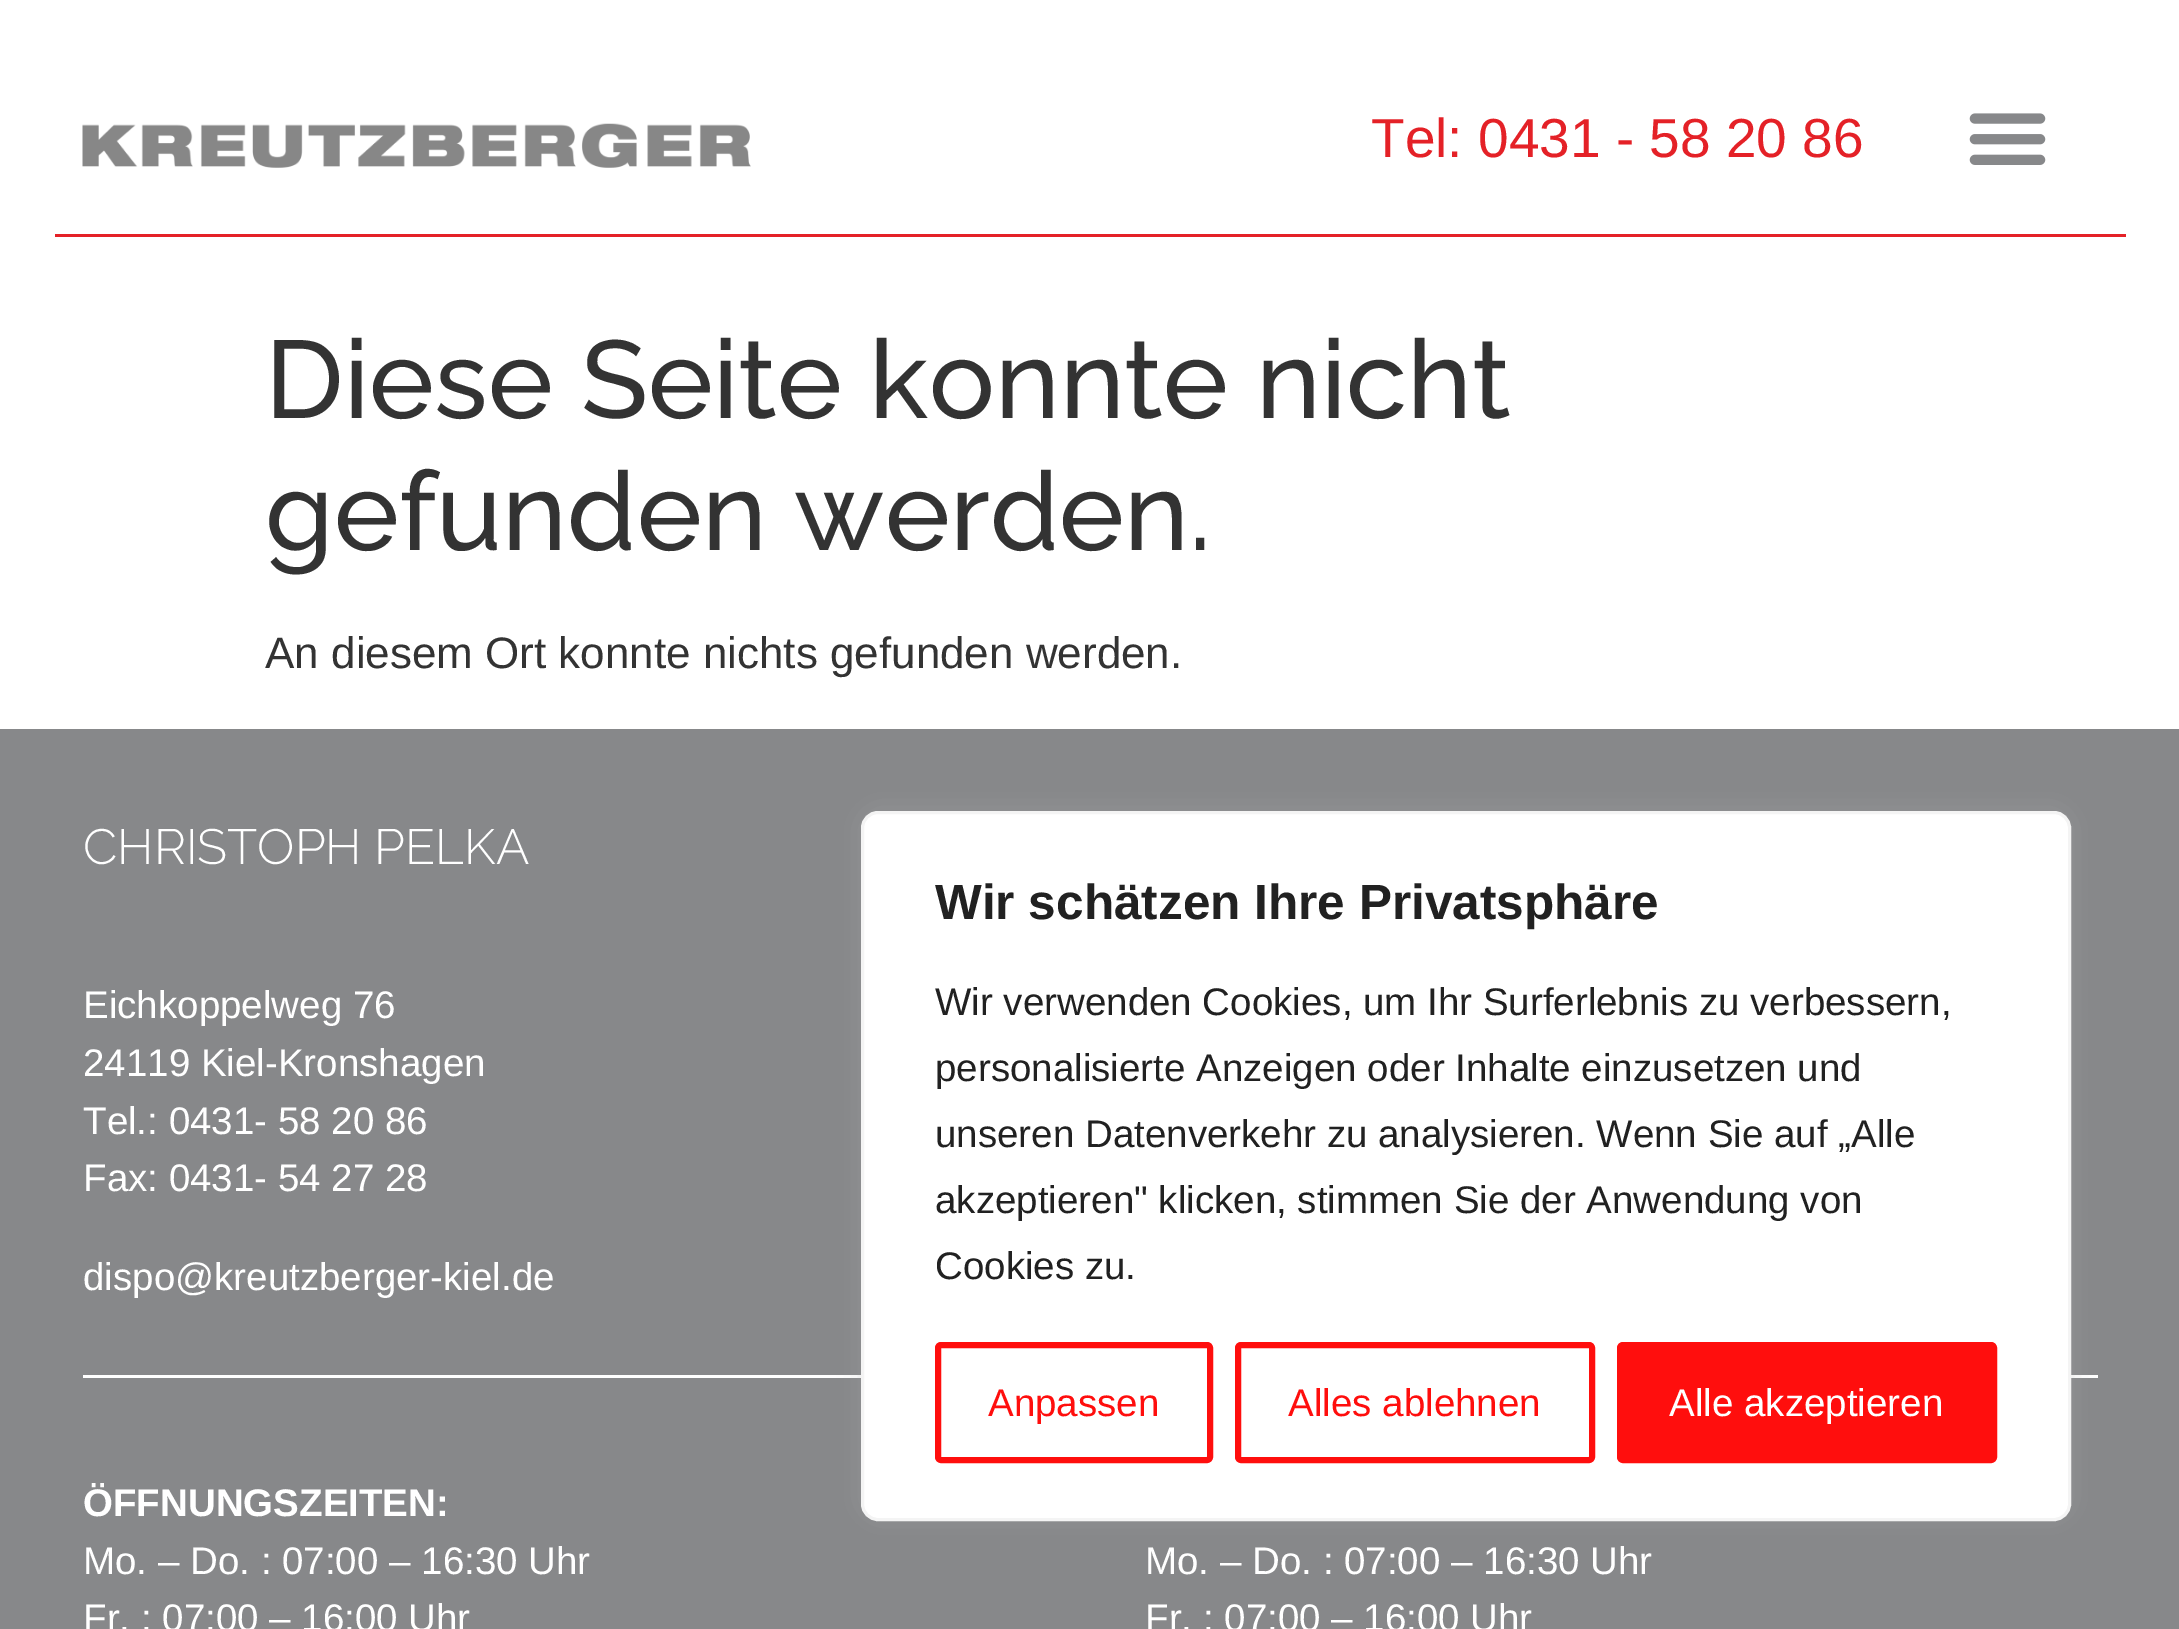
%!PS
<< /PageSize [2179 1629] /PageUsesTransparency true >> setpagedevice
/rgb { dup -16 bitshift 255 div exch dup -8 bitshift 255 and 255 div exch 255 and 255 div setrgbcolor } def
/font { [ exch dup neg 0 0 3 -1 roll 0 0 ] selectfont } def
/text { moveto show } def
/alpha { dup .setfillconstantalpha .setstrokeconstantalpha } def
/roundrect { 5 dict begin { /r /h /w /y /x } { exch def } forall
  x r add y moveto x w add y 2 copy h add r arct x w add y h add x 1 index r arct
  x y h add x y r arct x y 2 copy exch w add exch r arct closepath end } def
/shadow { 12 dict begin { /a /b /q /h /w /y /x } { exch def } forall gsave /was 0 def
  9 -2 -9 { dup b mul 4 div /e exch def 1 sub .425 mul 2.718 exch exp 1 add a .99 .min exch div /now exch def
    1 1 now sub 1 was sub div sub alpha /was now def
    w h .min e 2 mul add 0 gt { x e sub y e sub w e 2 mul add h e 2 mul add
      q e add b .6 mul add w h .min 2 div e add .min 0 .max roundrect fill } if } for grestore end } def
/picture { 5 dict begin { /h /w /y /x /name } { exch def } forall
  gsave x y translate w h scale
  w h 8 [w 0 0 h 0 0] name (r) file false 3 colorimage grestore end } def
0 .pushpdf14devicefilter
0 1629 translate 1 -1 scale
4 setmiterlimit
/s1 { /LiberationSans-Regular 55 font 16#E42127 rgb } def
/s2 { /Raleway-Medium 110 font 16#333333 rgb } def
/s3 { /LiberationSans-Regular 44 font 16#333333 rgb } def
/s4 { /Raleway-Light 49.5 font 16#FFFFFF rgb } def
/s5 { /LiberationSans-Regular 38.5 font 16#FFFFFF rgb } def
/s6 { /LiberationSans-Bold 38.5 font 16#FFFFFF rgb } def
/s7 { /LiberationSans-Bold 49.5 font 16#212121 rgb } def
/s8 { /LiberationSans-Regular 38.5 font 16#212121 rgb } def
/s9 { /LiberationSans-Regular 38.5 font 16#FF0E0D rgb } def
16#FFFFFF rgb
0 0 2179 1629 rectfill
16#E42127 rgb
55 234 2071 3 rectfill
(pic1.raw) 82 123 669 45 picture
s1
(Tel: 0431 - 58 20 86) 1371 157 text
(pic2.raw) 1969 113 77 52 picture
s2
(Diese Seite konnte nicht) 265 418 text
(gefunden werden.) 265 550 text
s3
(An diesem Ort konnte nichts gefunden werden.) 265 668 text
16#87888A rgb
0 729 2179 900 rectfill
s4
(CHRISTOPH PELKA) 83 864 text
s5
(Eichkoppelweg 76) 83 1018 text
(24119 Kiel-Kronshagen) 83 1076 text
(Tel.: 0431- 58 20 86) 83 1134 text
(Fax: 0431- 54 27 28) 83 1191 text
(dispo@kreutzberger-kiel.de) 83 1290 text
83 1375 778 3 rectfill
s6
(ÖFFNUNGSZEITEN:) 83 1516 text
s5
(Mo. – Do. : 07:00 – 16:30 Uhr) 83 1574 text
(Fr. : 07:00 – 16:00 Uhr) 83 1631 text
2071 1375 27 3 rectfill
(Mo. – Do. : 07:00 – 16:30 Uhr) 1145 1574 text
(Fr. : 07:00 – 16:00 Uhr) 1145 1631 text
16#ACABAB rgb
861 809 1210 709 17 14 0.3 shadow
16#FFFFFF rgb
862.5 812.5 1207 707 15.5 roundrect gsave fill grestore
16#F4F4F4 rgb
3 setlinewidth
stroke
s7
(Wir schätzen Ihre Privatsphäre) 935 919 text
s8
(Wir verwenden Cookies, um Ihr Surferlebnis zu verbessern,) 935 1015 text
(personalisierte Anzeigen oder Inhalte einzusetzen und) 935 1081 text
(unseren Datenverkehr zu analysieren. Wenn Sie auf „Alle) 935 1147 text
(akzeptieren" klicken, stimmen Sie der Anwendung von) 935 1213 text
(Cookies zu.) 935 1279 text
16#FF0E0D rgb
6 setlinewidth
938 1345 272 115 3 roundrect stroke
(Anpassen) 988 1416 text
1238 1345 354 115 3 roundrect stroke
(Alles ablehnen) 1288 1416 text
1620 1345 374 115 3 roundrect gsave fill grestore
stroke
s5
(Alle akzeptieren) 1669 1416 text
.poppdf14devicefilter showpage
